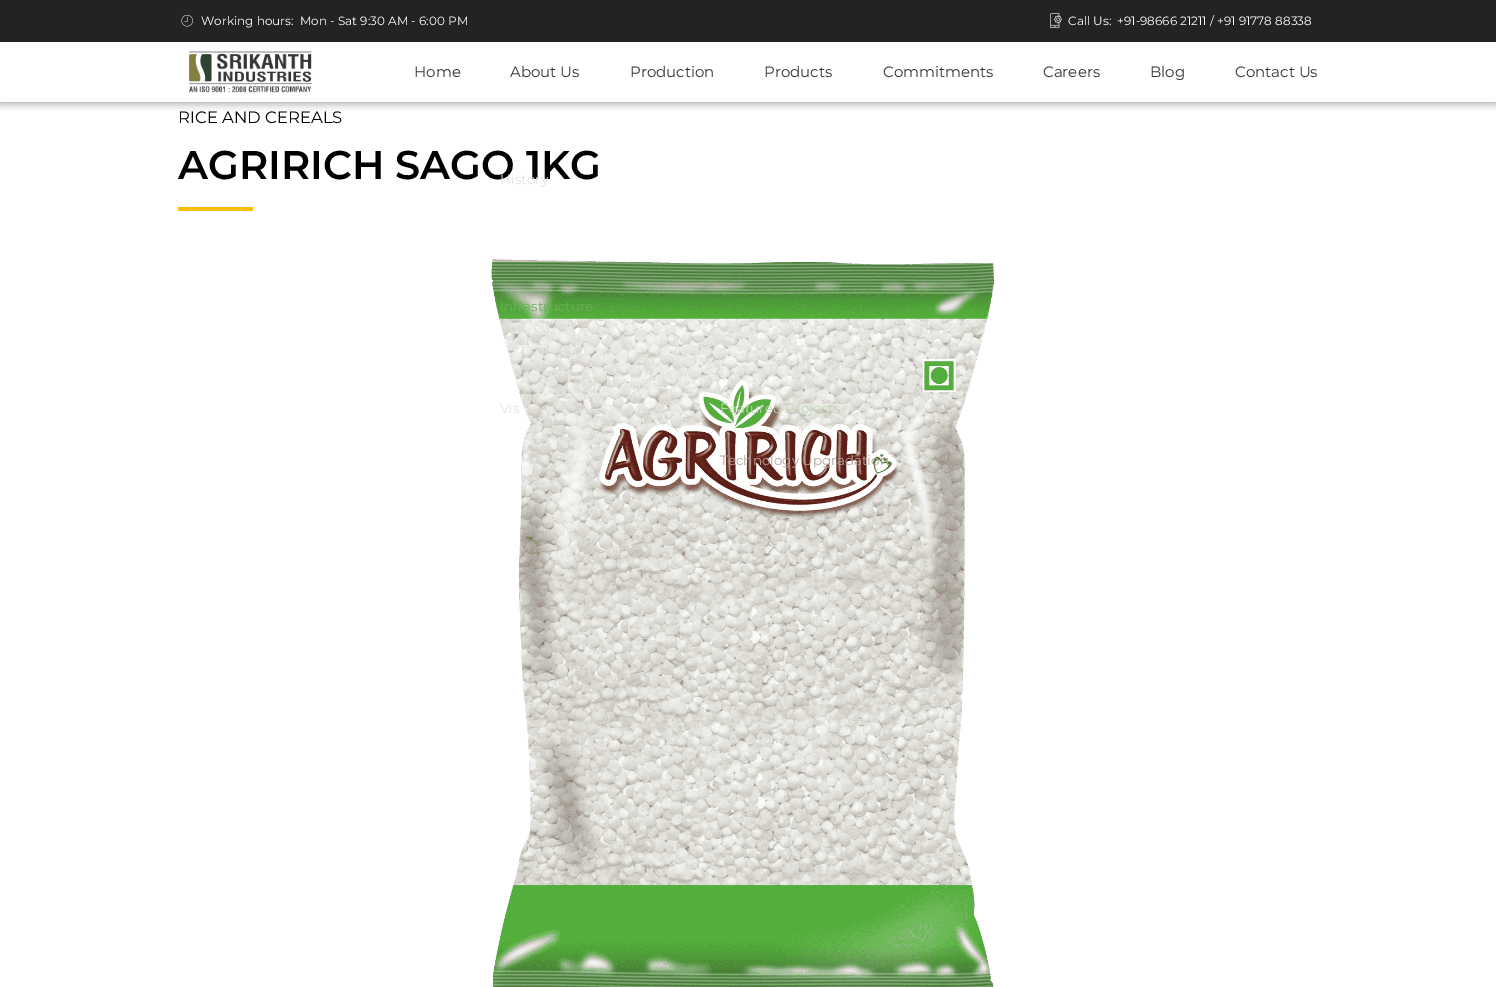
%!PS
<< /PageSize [1496 987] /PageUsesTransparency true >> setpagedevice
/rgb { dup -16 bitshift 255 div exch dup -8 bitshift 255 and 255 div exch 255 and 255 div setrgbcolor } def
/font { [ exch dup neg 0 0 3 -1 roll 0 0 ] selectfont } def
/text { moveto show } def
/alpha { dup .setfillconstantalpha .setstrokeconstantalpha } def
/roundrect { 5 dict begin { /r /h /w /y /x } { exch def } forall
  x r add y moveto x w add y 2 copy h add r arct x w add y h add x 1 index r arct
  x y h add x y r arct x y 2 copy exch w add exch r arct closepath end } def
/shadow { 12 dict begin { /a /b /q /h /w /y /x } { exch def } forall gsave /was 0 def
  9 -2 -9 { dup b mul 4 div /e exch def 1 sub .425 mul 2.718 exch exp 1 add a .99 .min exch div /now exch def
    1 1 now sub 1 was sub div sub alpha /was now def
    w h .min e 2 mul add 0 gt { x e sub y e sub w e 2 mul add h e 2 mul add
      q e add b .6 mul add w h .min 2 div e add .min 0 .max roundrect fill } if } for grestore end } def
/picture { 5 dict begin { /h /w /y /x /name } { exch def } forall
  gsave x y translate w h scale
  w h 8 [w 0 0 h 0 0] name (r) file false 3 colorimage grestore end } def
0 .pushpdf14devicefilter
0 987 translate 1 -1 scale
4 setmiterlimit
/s1 { /Montserrat-Regular 12 font 16#FFFFFF rgb } def
/s2 { /Montserrat-Regular 15 font 16#333333 rgb } def
/s3 { /Montserrat-SemiBold 40 font 16#000000 rgb } def
/s4 { /Montserrat-Regular 13.5 font 16#E3E3E3 rgb } def
/s5 { /Montserrat-Regular 13.5 font 16#6FAE5C rgb } def
/s6 { /Montserrat-Regular 13.5 font 16#BFD3B3 rgb } def
/s7 { /Montserrat-Regular 13.5 font 16#B8A29B rgb } def
/s8 { /Montserrat-Regular 16.5 font 16#000000 rgb } def
16#FFFFFF rgb
0 0 1496 987 rectfill
gsave
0 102 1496 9 rectclip
16#000000 rgb
0 0 1496 102 0 5 0.5 shadow
grestore
16#232323 rgb
0 1 1496 41 rectfill
16#202020 rgb
0 0 1496 1 rectfill
(pic1.raw) 181 14 12 13 picture
s1
(Working hours:) 201 25 text
(Mon - Sat 9:30 AM - 6:00 PM) 300 25 text
(pic2.raw) 1050 13 12 15 picture
(Call Us:) 1068 25 text
(+91-98666 21211 / +91 91778 88338) 1117 25 text
(pic3.raw) 189 51 123 42 picture
s2
(About Us) 510 77 text
s3
(AGRIRICH SAGO 1KG) 178 179 text
s4
(History) 500 184 text
(pic4.raw) 491 259 504 728 picture
s5
(Infrastructure) 500 311 text
s4
(Vis) 500 413 text
s6
(Featured Projects) 720 413 text
s7
(Technology Upgradation) 720 465 text
s2
(Home) 414 77 text
(Production) 630 77 text
(Products) 764 77 text
(Commitments) 883 77 text
(Careers) 1043 77 text
(Blog) 1150 77 text
(Contact Us) 1235 77 text
s8
(RICE AND CEREALS) 178 123 text
16#FBBD02 rgb
178 207 75 4 rectfill
.poppdf14devicefilter showpage
